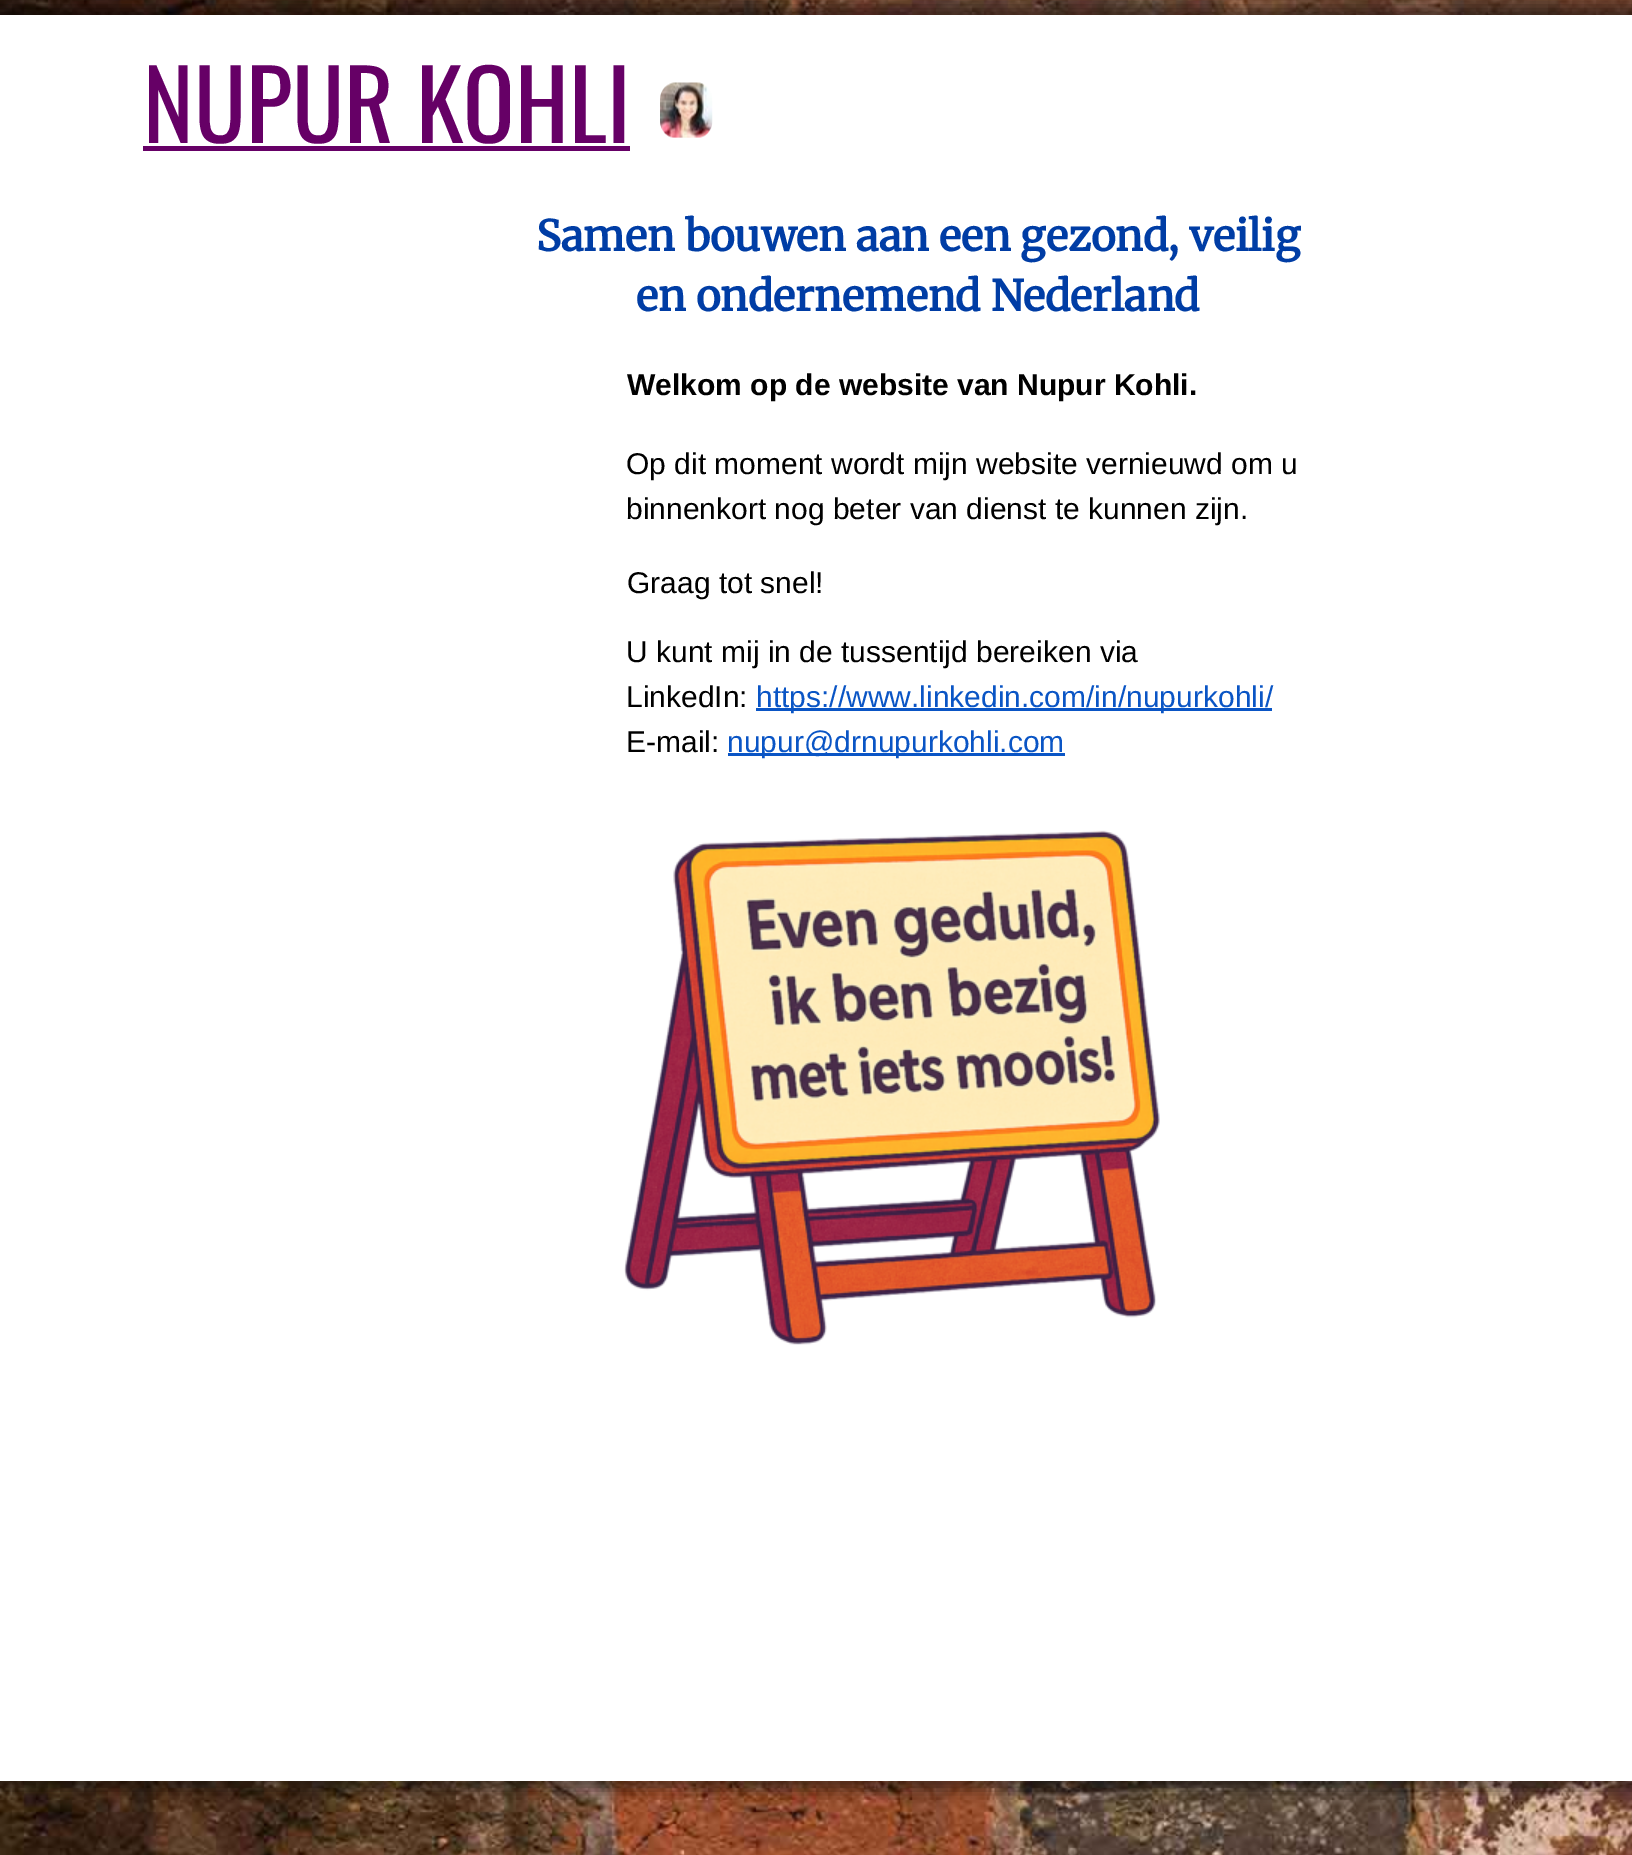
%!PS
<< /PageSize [1632 1855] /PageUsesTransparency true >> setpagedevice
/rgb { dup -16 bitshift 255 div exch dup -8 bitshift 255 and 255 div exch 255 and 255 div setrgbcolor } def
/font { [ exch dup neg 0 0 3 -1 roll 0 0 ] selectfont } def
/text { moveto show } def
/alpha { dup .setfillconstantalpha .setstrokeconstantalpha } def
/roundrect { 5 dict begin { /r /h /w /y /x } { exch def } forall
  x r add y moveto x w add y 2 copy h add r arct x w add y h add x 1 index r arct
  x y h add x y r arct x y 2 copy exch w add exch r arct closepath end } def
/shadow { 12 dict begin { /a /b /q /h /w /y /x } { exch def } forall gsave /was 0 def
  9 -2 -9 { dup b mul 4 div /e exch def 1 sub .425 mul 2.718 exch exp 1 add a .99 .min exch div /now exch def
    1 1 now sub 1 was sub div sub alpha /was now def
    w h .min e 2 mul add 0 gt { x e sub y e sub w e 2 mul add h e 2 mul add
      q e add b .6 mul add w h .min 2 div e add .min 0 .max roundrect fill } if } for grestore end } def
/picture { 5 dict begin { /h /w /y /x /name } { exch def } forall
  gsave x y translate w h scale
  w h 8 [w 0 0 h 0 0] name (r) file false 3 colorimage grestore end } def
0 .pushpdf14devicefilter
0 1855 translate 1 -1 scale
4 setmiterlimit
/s1 { /Oswald-Regular 96 font 16#660066 rgb } def
/s2 { /Merriweather-Bold 42 font 16#003DA5 rgb } def
/s3 { /LiberationSans-Bold 30 font 16#000000 rgb } def
/s4 { /LiberationSans-Regular 30 font 16#000000 rgb } def
/s5 { /LiberationSans-Regular 30 font 16#0A55C5 rgb } def
16#FFFFFF rgb
0 0 1632 1855 rectfill
(pic1.raw) 0 0 1632 1855 picture
16#000000 rgb
-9 6 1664 1784 0 7.5 0.5 shadow
16#FFFFFF rgb
0 15 1632 1766 rectfill
s1
(NUPUR KOHLI) 143 143 text
143 146 487 5 rectfill
(pic2.raw) 660 82 53 56 picture
s2
(Samen bouwen aan een gezond, veilig) 536 251 text
(en ondernemend Nederland) 636 311 text
s3
(Welkom op de website van Nupur Kohli.) 627 395 text
s4
(Op dit moment wordt mijn website vernieuwd om u) 626 474 text
(binnenkort nog beter van dienst te kunnen zijn.) 626 519 text
(Graag tot snel!) 627 593 text
(U kunt mij in de tussentijd bereiken via) 626 662 text
(LinkedIn:) 626 707 text
16#0A55C5 rgb
756 708 516 3 rectfill
(https://www.linkedin.com/in/nupurkohli/) 756 707 text
s4
(E-mail:) 626 752 text
16#0A55C5 rgb
728 753 337 3 rectfill
(nupur@drnupurkohli.com) 727 752 text
(pic3.raw) 624 830 536 515 picture
.poppdf14devicefilter showpage
